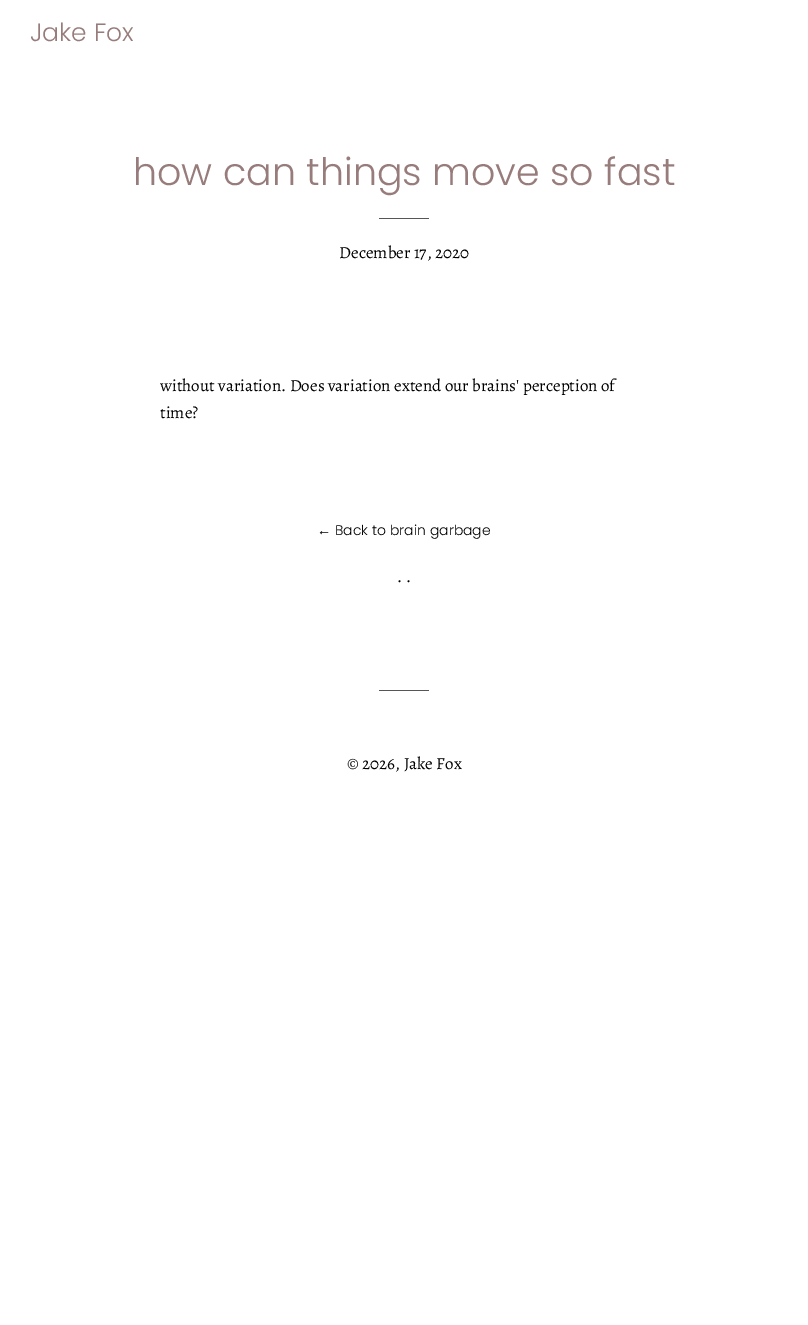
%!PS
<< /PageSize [808 1325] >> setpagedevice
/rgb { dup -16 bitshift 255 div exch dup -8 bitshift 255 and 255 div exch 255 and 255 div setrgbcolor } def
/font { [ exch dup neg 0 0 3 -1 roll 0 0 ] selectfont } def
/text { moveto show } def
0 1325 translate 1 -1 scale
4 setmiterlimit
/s1 { /Poppins-Light 25 font 16#987B7B rgb } def
/s2 { /Poppins-Light 38 font 16#987B7B rgb } def
/s3 { /Alegreya-Regular 17 font 16#000000 rgb } def
/s4 { /LiberationSans-Regular 14 font 16#000000 rgb } def
/s5 { /Poppins-Light 14 font 16#000000 rgb } def
16#FFFFFF rgb
0 0 808 1325 rectfill
s1
(Jake Fox) 30 41 text
s2
(how can things move so fast) 133 185 text
16#565656 rgb
379 218 50 1 rectfill
s3
(December 17, 2020) 339 258 text
(without variation. Does variation extend our brains' perception of) 160 391 text
(time?) 160 418 text
s4
(←) 317 535 text
s5
(Back to brain garbage) 335 535 text
s3
(. .) 397 582 text
16#565656 rgb
379 690 50 1 rectfill
s3
(© 2026, Jake Fox) 347 769 text
showpage
